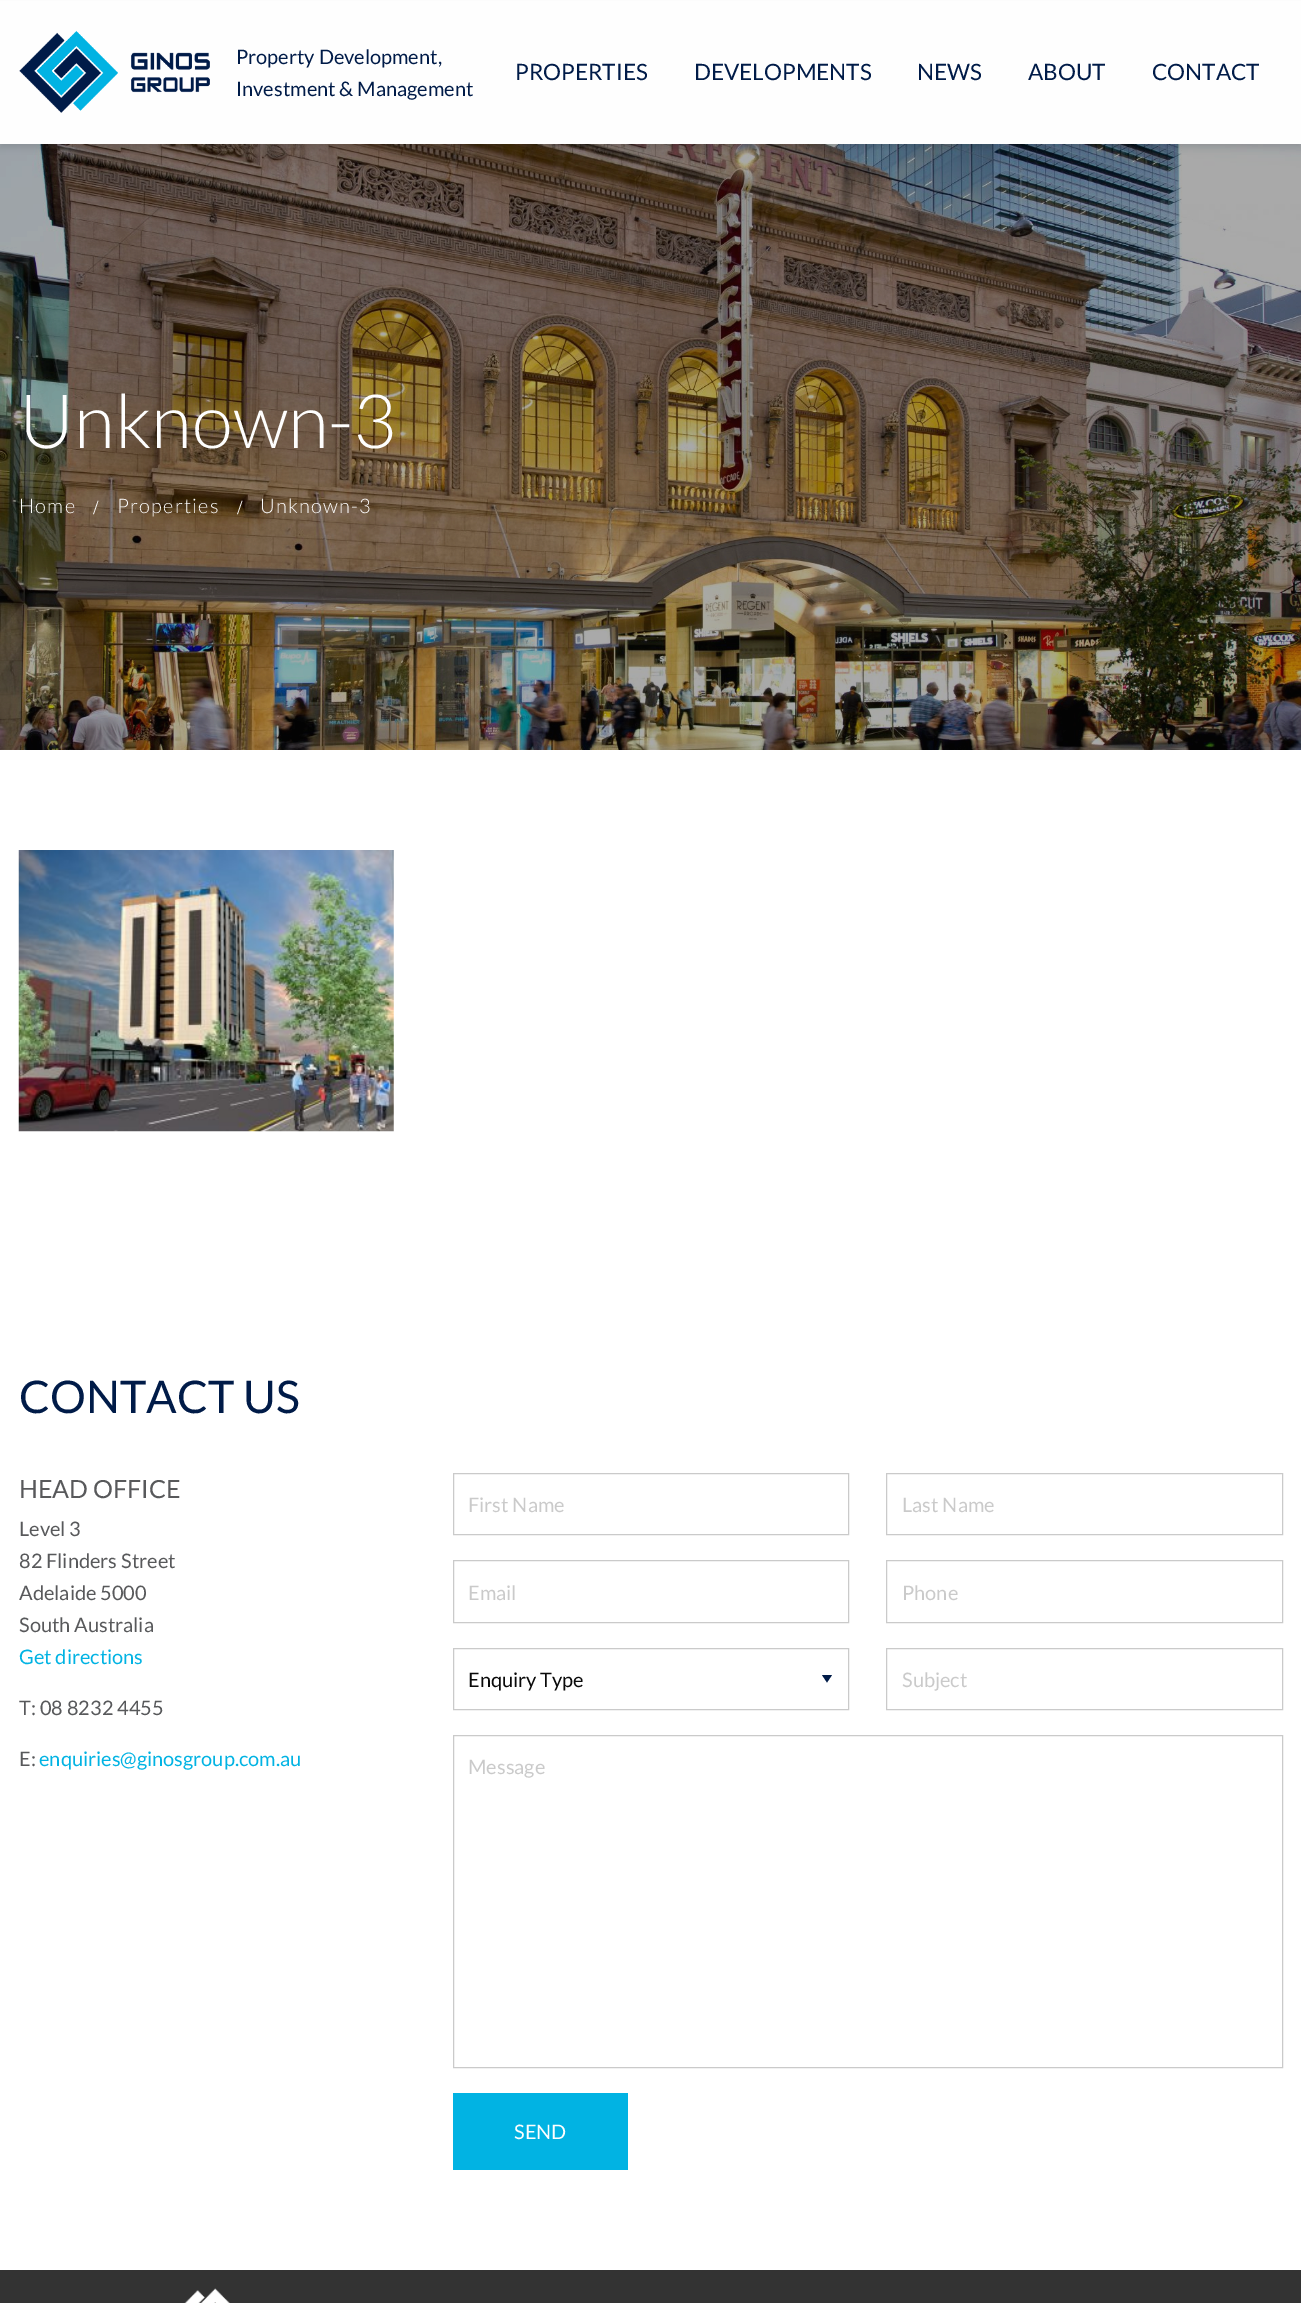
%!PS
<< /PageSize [1301 2303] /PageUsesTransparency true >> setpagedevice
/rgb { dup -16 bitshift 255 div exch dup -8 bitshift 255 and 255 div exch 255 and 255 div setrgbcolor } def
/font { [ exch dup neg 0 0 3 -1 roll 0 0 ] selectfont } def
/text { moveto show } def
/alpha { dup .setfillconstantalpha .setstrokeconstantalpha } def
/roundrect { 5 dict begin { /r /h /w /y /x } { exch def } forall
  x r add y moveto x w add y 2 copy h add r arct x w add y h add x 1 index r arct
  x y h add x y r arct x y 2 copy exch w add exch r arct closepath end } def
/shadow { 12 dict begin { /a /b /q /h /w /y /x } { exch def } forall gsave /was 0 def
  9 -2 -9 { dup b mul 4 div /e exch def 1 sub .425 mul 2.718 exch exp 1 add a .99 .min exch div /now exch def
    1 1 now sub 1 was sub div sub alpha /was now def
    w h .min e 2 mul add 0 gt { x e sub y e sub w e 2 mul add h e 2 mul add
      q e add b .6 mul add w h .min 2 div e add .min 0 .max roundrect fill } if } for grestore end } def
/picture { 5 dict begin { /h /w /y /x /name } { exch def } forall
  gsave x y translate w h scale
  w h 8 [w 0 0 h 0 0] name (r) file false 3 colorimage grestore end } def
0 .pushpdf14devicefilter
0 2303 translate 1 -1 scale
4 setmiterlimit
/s1 { /Lato-Regular 20 font 16#001B48 rgb } def
/s2 { /Lato-Regular 22.5 font 16#001B48 rgb } def
/s3 { /Lato-Light 75 font 16#FEFEFE rgb } def
/s4 { /Lato-Regular 45 font 16#001B48 rgb } def
/s5 { /Lato-Regular 25 font 16#58595B rgb } def
/s6 { /Lato-Regular 20 font 16#58595B rgb } def
/s7 { /Lato-Regular 20 font 16#01B3E3 rgb } def
/s8 { /Lato-Regular 20 font 16#CACACA rgb } def
/s9 { /Lato-Regular 20 font 16#0A0A0A rgb } def
/s10 { /Lato-Regular 20 font 16#FEFEFE rgb } def
16#FFFFFF rgb
0 0 1301 2303 rectfill
16#0A0A0A rgb
0 144 1301 606 rectfill
(pic2.raw) 0 144 1301 606 picture
0 4 1301 144 0 3 0.1 shadow
16#FEFEFE rgb
0 1 1301 143 rectfill
(pic1.raw) 19 30 191 83 picture
s1
(Property Development,) 236 64 text
(Investment & Management) 236 96 text
s2
(PROPERTIES) 515 80 text
(DEVELOPMENTS) 694 80 text
(NEWS) 917 80 text
(ABOUT) 1028 80 text
(CONTACT) 1152 80 text
s3
(Unknown-3) 19 448 text
/Lato-Light 20 font
19 513 moveto 1.25 0 (Home) ashow
/LiberationSerif-Regular 20 font
93 514 moveto 1.25 0 (/) ashow
/Lato-Light 20 font
117 513 moveto 1.25 0 (Properties) ashow
/LiberationSerif-Regular 20 font
237 514 moveto 1.25 0 (/) ashow
/Lato-Light 20 font
260 513 moveto 1.25 0 (Unknown-3) ashow
(pic3.raw) 18 850 376 282 picture
s4
(CONTACT US) 19 1413 text
s5
(HEAD OFFICE) 19 1498 text
s6
(Level 3) 19 1536 text
(82 Flinders Street) 19 1568 text
(Adelaide 5000) 19 1600 text
(South Australia) 19 1632 text
s7
(Get directions) 19 1664 text
s6
(T: 08 8232 4455) 19 1715 text
(E:) 19 1766 text
s7
(enquiries@ginosgroup.com.au) 39 1766 text
16#CACACA rgb
453.5 1473.5 395 61 rectstroke
(First Name) 468 1512 text
886.5 1473.5 396 61 rectstroke
(Last Name) 902 1512 text
453.5 1560.5 395 62 rectstroke
(Email) 468 1600 text
886.5 1560.5 396 62 rectstroke
(Phone) 902 1600 text
16#001B48 rgb
822 1675 moveto 832 1675 lineto 827 1682.5 lineto closepath fill
16#CACACA rgb
453.5 1648.5 395 61 rectstroke
s9
(Enquiry Type) 468 1687 text
16#CACACA rgb
886.5 1648.5 396 61 rectstroke
(Subject) 902 1687 text
453.5 1735.5 829 332 rectstroke
(Message) 468 1774 text
16#01B3E3 rgb
453 2093 175 77 rectfill
s10
(SEND) 514 2139 text
16#333333 rgb
0 2270 1301 33 rectfill
(pic4.raw) 184 2288 46 15 picture
.poppdf14devicefilter showpage
